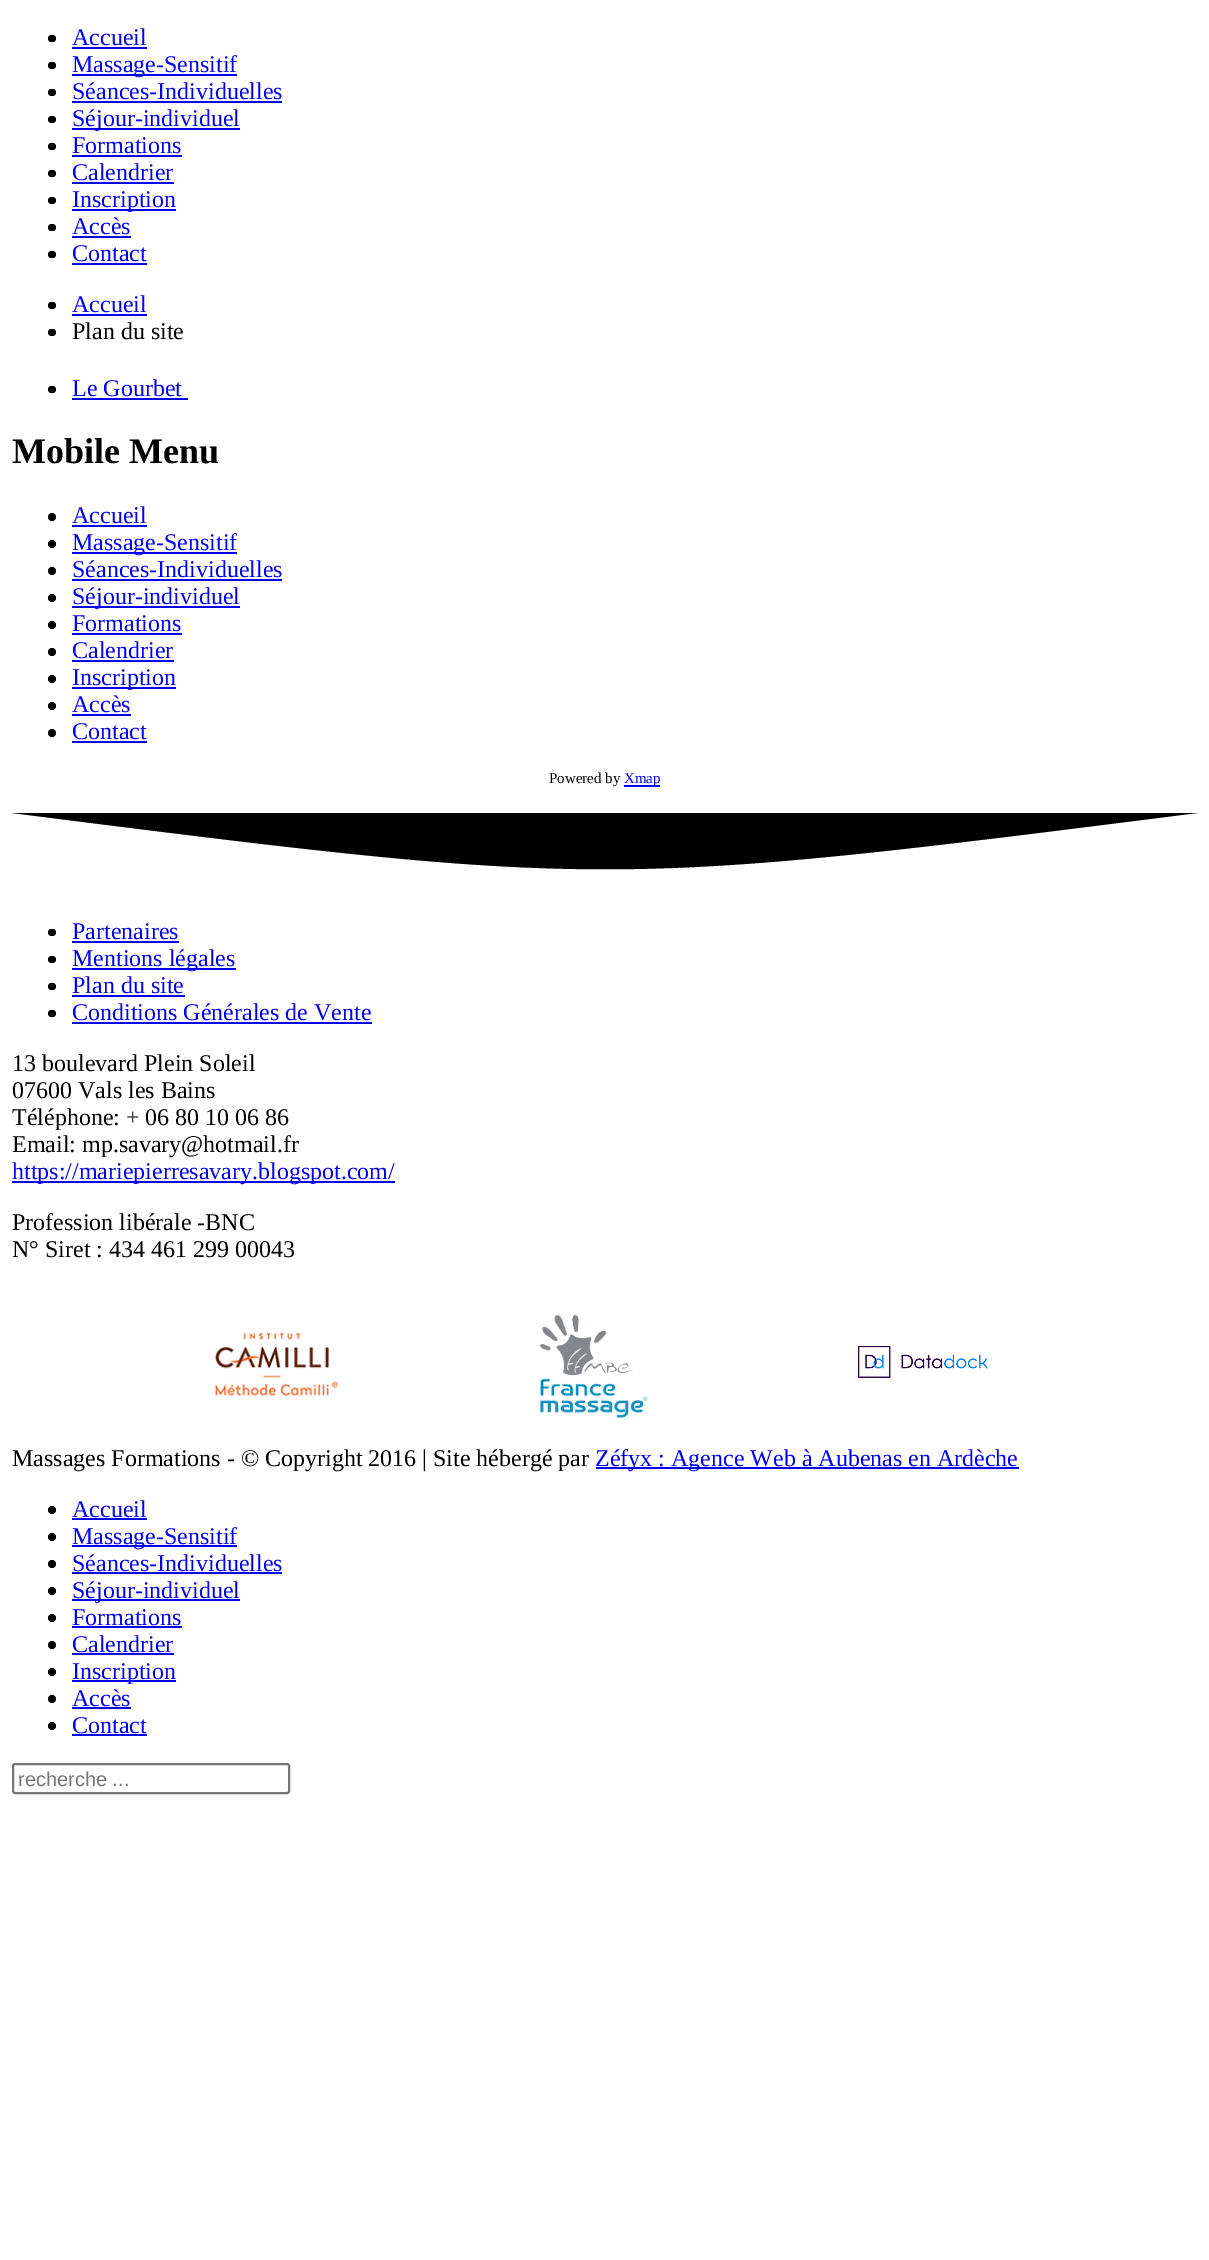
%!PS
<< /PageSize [1209 2260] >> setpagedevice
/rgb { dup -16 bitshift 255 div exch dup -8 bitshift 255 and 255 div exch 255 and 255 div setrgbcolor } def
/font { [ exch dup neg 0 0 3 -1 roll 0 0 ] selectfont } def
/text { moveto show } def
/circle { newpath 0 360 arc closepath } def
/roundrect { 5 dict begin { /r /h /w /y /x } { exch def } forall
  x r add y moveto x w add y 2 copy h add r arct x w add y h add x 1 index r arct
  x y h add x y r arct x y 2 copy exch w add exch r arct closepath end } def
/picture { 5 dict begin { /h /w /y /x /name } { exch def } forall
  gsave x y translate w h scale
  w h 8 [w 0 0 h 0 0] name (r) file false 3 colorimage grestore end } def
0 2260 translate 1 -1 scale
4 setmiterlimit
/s1 { /LiberationSerif-Regular 24 font 16#0000EE rgb } def
/s2 { /LiberationSerif-Regular 24 font 16#000000 rgb } def
/s3 { /LiberationSerif-Bold 36 font 16#000000 rgb } def
/s4 { /LiberationSerif-Regular 15 font 16#000000 rgb } def
/s5 { /LiberationSerif-Regular 15 font 16#0000EE rgb } def
/s6 { /LiberationSans-Regular 20 font 16#757575 rgb } def
16#FFFFFF rgb
0 0 1209 2260 rectfill
16#000000 rgb
48 35 8 7 3.5 roundrect fill
s1
(Accueil) 72 45 text
72 47 75 2 rectfill
16#000000 rgb
48 62 8 7 3.5 roundrect fill
16#0000EE rgb
72 74 165 2 rectfill
(Massage-Sensitif) 72 72 text
16#000000 rgb
48 89 8 7 3.5 roundrect fill
s1
(Séances-Individuelles) 72 99 text
72 101 210 2 rectfill
16#000000 rgb
48 116 8 7 3.5 roundrect fill
16#0000EE rgb
72 128 168 2 rectfill
(Séjour-individuel) 72 126 text
16#000000 rgb
48 143 8 7 3.5 roundrect fill
s1
(Formations) 72 153 text
72 155 110 2 rectfill
16#000000 rgb
48 170 8 7 3.5 roundrect fill
s1
(Calendrier) 72 180 text
72 182 102 2 rectfill
16#000000 rgb
48 197 8 7 3.5 roundrect fill
16#0000EE rgb
72 209 104 2 rectfill
(Inscription) 72 207 text
16#000000 rgb
48 224 8 7 3.5 roundrect fill
s1
(Accès) 72 234 text
72 236 59 2 rectfill
16#000000 rgb
48 251 8 7 3.5 roundrect fill
s1
(Contact) 72 261 text
72 263 75 2 rectfill
16#000000 rgb
48 302 8 7 3.5 roundrect fill
s1
(Accueil) 72 312 text
72 314 75 2 rectfill
16#000000 rgb
48 329 8 7 3.5 roundrect fill
(Plan du site) 72 339 text
48 386 8 7 3.5 roundrect fill
s1
(Le Gourbet) 72 396 text
72 398 116 2 rectfill
s3
(Mobile Menu) 12 463 text
52 517 4 circle fill
s1
(Accueil) 72 523 text
72 525 75 2 rectfill
16#000000 rgb
52 544 4 circle fill
16#0000EE rgb
72 552 165 2 rectfill
(Massage-Sensitif) 72 550 text
16#000000 rgb
52 571 4 circle fill
s1
(Séances-Individuelles) 72 577 text
72 579 210 2 rectfill
16#000000 rgb
52 598 4 circle fill
16#0000EE rgb
72 606 168 2 rectfill
(Séjour-individuel) 72 604 text
16#000000 rgb
52 625 4 circle fill
s1
(Formations) 72 631 text
72 633 110 2 rectfill
16#000000 rgb
52 652 4 circle fill
s1
(Calendrier) 72 658 text
72 660 102 2 rectfill
16#000000 rgb
52 679 4 circle fill
16#0000EE rgb
72 687 104 2 rectfill
(Inscription) 72 685 text
16#000000 rgb
52 706 4 circle fill
s1
(Accès) 72 712 text
72 714 59 2 rectfill
16#000000 rgb
52 733 4 circle fill
s1
(Contact) 72 739 text
72 741 75 2 rectfill
s4
(Powered by) 549 783 text
16#0000EE rgb
624 785 36 2 rectfill
(Xmap) 624 783 text
16#000000 rgb
12 813 moveto 605 888 605 888 1197 813 curveto closepath fill
48 929 8 7 3.5 roundrect fill
s1
(Partenaires) 72 939 text
72 941 107 2 rectfill
16#000000 rgb
48 956 8 7 3.5 roundrect fill
16#0000EE rgb
72 968 164 2 rectfill
(Mentions légales) 72 966 text
16#000000 rgb
48 983 8 7 3.5 roundrect fill
s1
(Plan du site) 72 993 text
72 995 113 2 rectfill
16#000000 rgb
48 1010 8 7 3.5 roundrect fill
s1
(Conditions Générales de Vente) 72 1020 text
72 1022 300 2 rectfill
s2
(13 boulevard Plein Soleil) 12 1071 text
(07600 Vals les Bains) 12 1098 text
(Téléphone: + 06 80 10 06 86) 12 1125 text
(Email: mp.savary@hotmail.fr) 12 1152 text
16#0000EE rgb
12 1181 383 2 rectfill
(https://mariepierresavary.blogspot.com/) 12 1179 text
s2
(Profession libérale -BNC) 12 1230 text
(N° Siret : 434 461 299 00043) 12 1257 text
(pic1.raw) 215 1333 123 63 picture
(pic2.raw) 540 1314 108 104 picture
(pic3.raw) 858 1346 130 32 picture
(Massages Formations - © Copyright 2016 | Site hébergé par) 12 1466 text
16#0000EE rgb
596 1467 423 2 rectfill
(Zéfyx : Agence Web à Aubenas en Ardèche) 595 1466 text
16#000000 rgb
52 1510 4 circle fill
s1
(Accueil) 72 1517 text
72 1518 75 2 rectfill
16#000000 rgb
52 1537 4 circle fill
16#0000EE rgb
72 1545 165 2 rectfill
(Massage-Sensitif) 72 1544 text
16#000000 rgb
52 1564 4 circle fill
s1
(Séances-Individuelles) 72 1571 text
72 1572 210 2 rectfill
16#000000 rgb
52 1591 4 circle fill
16#0000EE rgb
72 1599 168 2 rectfill
(Séjour-individuel) 72 1598 text
16#000000 rgb
52 1618 4 circle fill
s1
(Formations) 72 1625 text
72 1626 110 2 rectfill
16#000000 rgb
52 1645 4 circle fill
s1
(Calendrier) 72 1652 text
72 1653 102 2 rectfill
16#000000 rgb
52 1672 4 circle fill
16#0000EE rgb
72 1680 104 2 rectfill
(Inscription) 72 1679 text
16#000000 rgb
52 1699 4 circle fill
s1
(Accès) 72 1706 text
72 1707 59 2 rectfill
16#000000 rgb
52 1726 4 circle fill
s1
(Contact) 72 1733 text
72 1734 75 2 rectfill
16#767676 rgb
2 setlinewidth
13 1764 276 29 2 roundrect stroke
s6
(recherche ...) 18 1786 text
showpage
